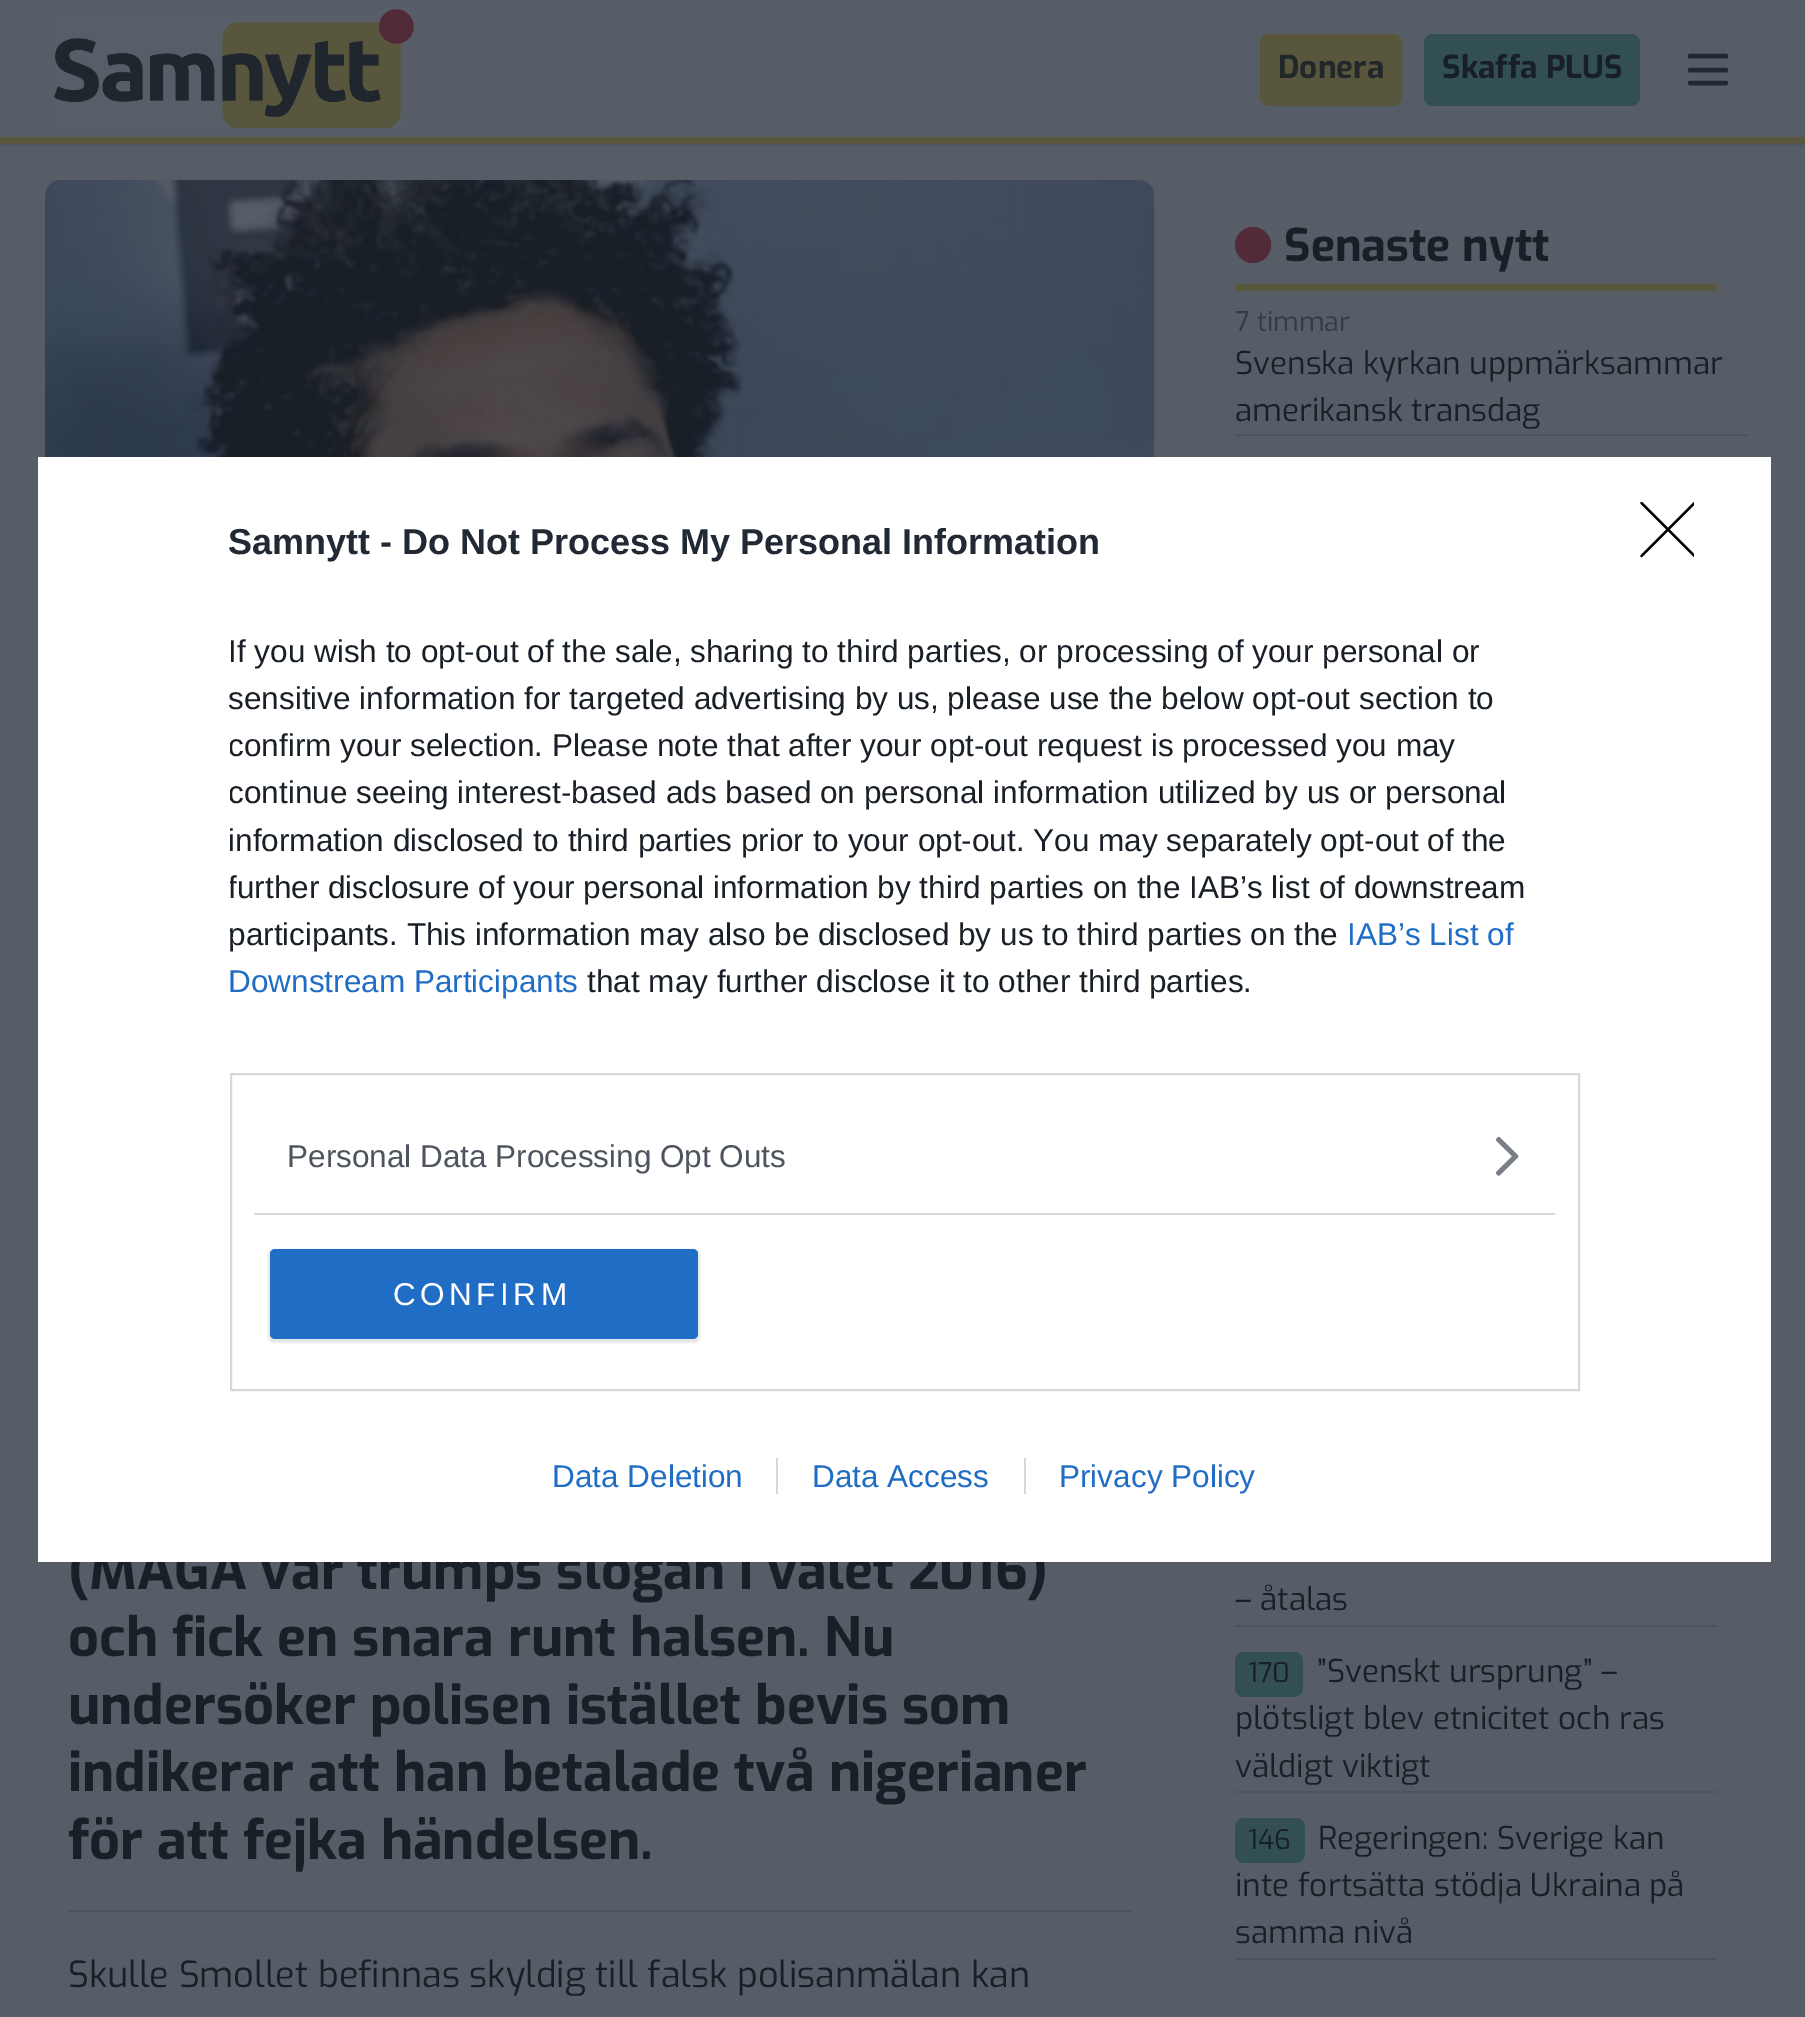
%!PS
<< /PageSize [1805 2017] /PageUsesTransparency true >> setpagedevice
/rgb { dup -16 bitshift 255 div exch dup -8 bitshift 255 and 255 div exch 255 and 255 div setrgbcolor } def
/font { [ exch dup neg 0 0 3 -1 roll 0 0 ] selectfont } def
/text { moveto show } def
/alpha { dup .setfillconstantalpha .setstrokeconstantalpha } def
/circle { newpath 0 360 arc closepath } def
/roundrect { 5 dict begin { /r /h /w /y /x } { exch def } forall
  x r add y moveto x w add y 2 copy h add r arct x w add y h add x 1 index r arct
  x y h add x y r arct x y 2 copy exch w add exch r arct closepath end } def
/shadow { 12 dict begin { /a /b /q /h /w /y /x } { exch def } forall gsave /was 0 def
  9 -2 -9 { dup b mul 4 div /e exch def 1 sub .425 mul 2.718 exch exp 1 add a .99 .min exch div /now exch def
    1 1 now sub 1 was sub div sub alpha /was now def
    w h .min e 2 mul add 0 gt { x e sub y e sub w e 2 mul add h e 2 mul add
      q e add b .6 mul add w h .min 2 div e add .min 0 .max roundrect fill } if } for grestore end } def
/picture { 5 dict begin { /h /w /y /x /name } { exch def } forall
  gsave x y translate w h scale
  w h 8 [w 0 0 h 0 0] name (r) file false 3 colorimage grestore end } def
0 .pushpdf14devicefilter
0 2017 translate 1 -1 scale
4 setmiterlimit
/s1 { /Exo-Bold 31.5 font 16#22272A rgb } def
/s2 { /Exo-Bold 31.5 font 16#191F27 rgb } def
/s3 { /Exo-Bold 54 font 16#191F27 rgb } def
/s4 { /Exo-Regular 36 font 16#191F27 rgb } def
/s5 { /Exo-Bold 45 font 16#191F27 rgb } def
/s6 { /Exo-Regular 27 font 16#343B47 rgb } def
/s7 { /Exo-Regular 31.5 font 16#191F27 rgb } def
/s8 { /Exo-Regular 27 font 16#191F27 rgb } def
/s9 { /LiberationSans-Bold 36 font 16#212934 rgb } def
/s10 { /LiberationSans-Regular 31.5 font 16#191F27 rgb } def
/s11 { /LiberationSans-Regular 31.5 font 16#206DC5 rgb } def
/s12 { /LiberationSans-Regular 31.5 font 16#4D545D rgb } def
16#575D66 rgb
0 0 1805 2017 rectfill
16#51575F rgb
0 144 moveto 0 146 lineto 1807 146 lineto 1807 2 lineto 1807 144 lineto closepath fill
16#58563C rgb
0 137 1805 7 rectfill
(pic1.raw) 54 9 360 120 picture
1260 34 142 72 9 roundrect fill
s1
(Donera) 1278 78 text
16#324F54 rgb
1424 34 216 72 9 roundrect fill
s2
(Skaffa PLUS) 1442 78 text
16#222831 rgb
4.5 setlinewidth
1 setlinecap
1 setlinejoin
1690 70 moveto 1726 70 lineto 1690 56 moveto 1726 56 lineto 1690 83 moveto 1726 83 lineto stroke
(pic2.raw) 45 180 1110 277 picture
16#4E545C rgb
68 1910 1064 2 rectfill
s3
(\(MAGA var trumps slogan i valet 2016\)) 68 1589 text
(och fick en snara runt halsen. Nu) 68 1656 text
(undersöker polisen istället bevis som) 68 1724 text
(indikerar att han betalade två nigerianer) 68 1791 text
(för att fejka händelsen.) 68 1859 text
s4
(Skulle Smollet befinnas skyldig till falsk polisanmälan kan) 68 1987 text
16#58563C rgb
1235 284 482 7 rectfill
16#522A38 rgb
1253 245 18 circle fill
s5
(Senaste nytt) 1284 261 text
16#4D545E rgb
1235 434 513 2 rectfill
s6
(7 timmar) 1235 331 text
s7
(Svenska kyrkan uppmärksammar) 1235 374 text
(amerikansk transdag) 1235 421 text
16#4D545E rgb
1235 1625 482 2 rectfill
s7
(– åtalas) 1235 1610 text
16#4D545E rgb
1235 1791 482 2 rectfill
16#324F54 rgb
1235 1652 68 45 9 roundrect fill
s8
(170) 1248 1682 text
s7
(”Svenskt ursprung” –) 1317 1682 text
(plötsligt blev etnicitet och ras) 1235 1729 text
(väldigt viktigt) 1235 1777 text
16#4D545E rgb
1235 1958 482 2 rectfill
16#324F54 rgb
1235 1818 70 45 9 roundrect fill
s8
(146) 1248 1849 text
s7
(Regeringen: Sverige kan) 1318 1849 text
(inte fortsätta stödja Ukraina på) 1235 1896 text
(samma nivå) 1235 1943 text
16#FFFFFF rgb
38 457 1733 1105 rectfill
s9
(Samnytt - Do Not Process My Personal Information) 228 554 text
s10
(If you wish to opt-out of the sale, sharing to third parties, or processing of your personal or) 228 662 text
(sensitive information for targeted advertising by us, please use the below opt-out section to) 228 709 text
gsave
230 594 1350 446 rectclip
(confirm your selection. Please note that after your opt-out request is processed you may) 228 756 text
(continue seeing interest-based ads based on personal information utilized by us or personal) 228 803 text
grestore
(information disclosed to third parties prior to your opt-out. You may separately opt-out of the) 228 851 text
gsave
230 594 1350 446 rectclip
(further disclosure of your personal information by third parties on the IAB’s list of downstream) 228 898 text
grestore
(participants. This information may also be disclosed by us to third parties on the) 228 945 text
s11
(IAB’s List of) 1347 945 text
(Downstream Participants) 228 992 text
s10
(that may further disclose it to other third parties.) 587 992 text
16#D8D8D8 rgb
2 setlinewidth
0 setlinecap
0 setlinejoin
231 1074 1348 316 rectstroke
254 1213 1301 2 rectfill
s12
(Personal Data Processing Opt Outs) 287 1167 text
(pic3.raw) 1495 1136 24 40 picture
16#000000 rgb
268 1249 432 94 7 1 0.1 shadow
16#206DC5 rgb
270 1249 428 90 5 roundrect fill
16#FFFFFF rgb
393 1305 moveto 4.5 0 (CONFIRM) ashow
gsave
1640 502 54 56 rectclip
16#000000 rgb
2.3 setlinewidth
1 setlinecap
1 setlinejoin
1641.5 503 moveto 1694.5 556 lineto 1694.5 503 moveto 1641.5 556 lineto stroke
grestore
s11
(Data Deletion) 552 1487 text
(Data Access) 812 1487 text
16#D8D8D8 rgb
776 1458 2 36 rectfill
s11
(Privacy Policy) 1059 1487 text
16#D8D8D8 rgb
1024 1458 2 36 rectfill
.poppdf14devicefilter showpage
